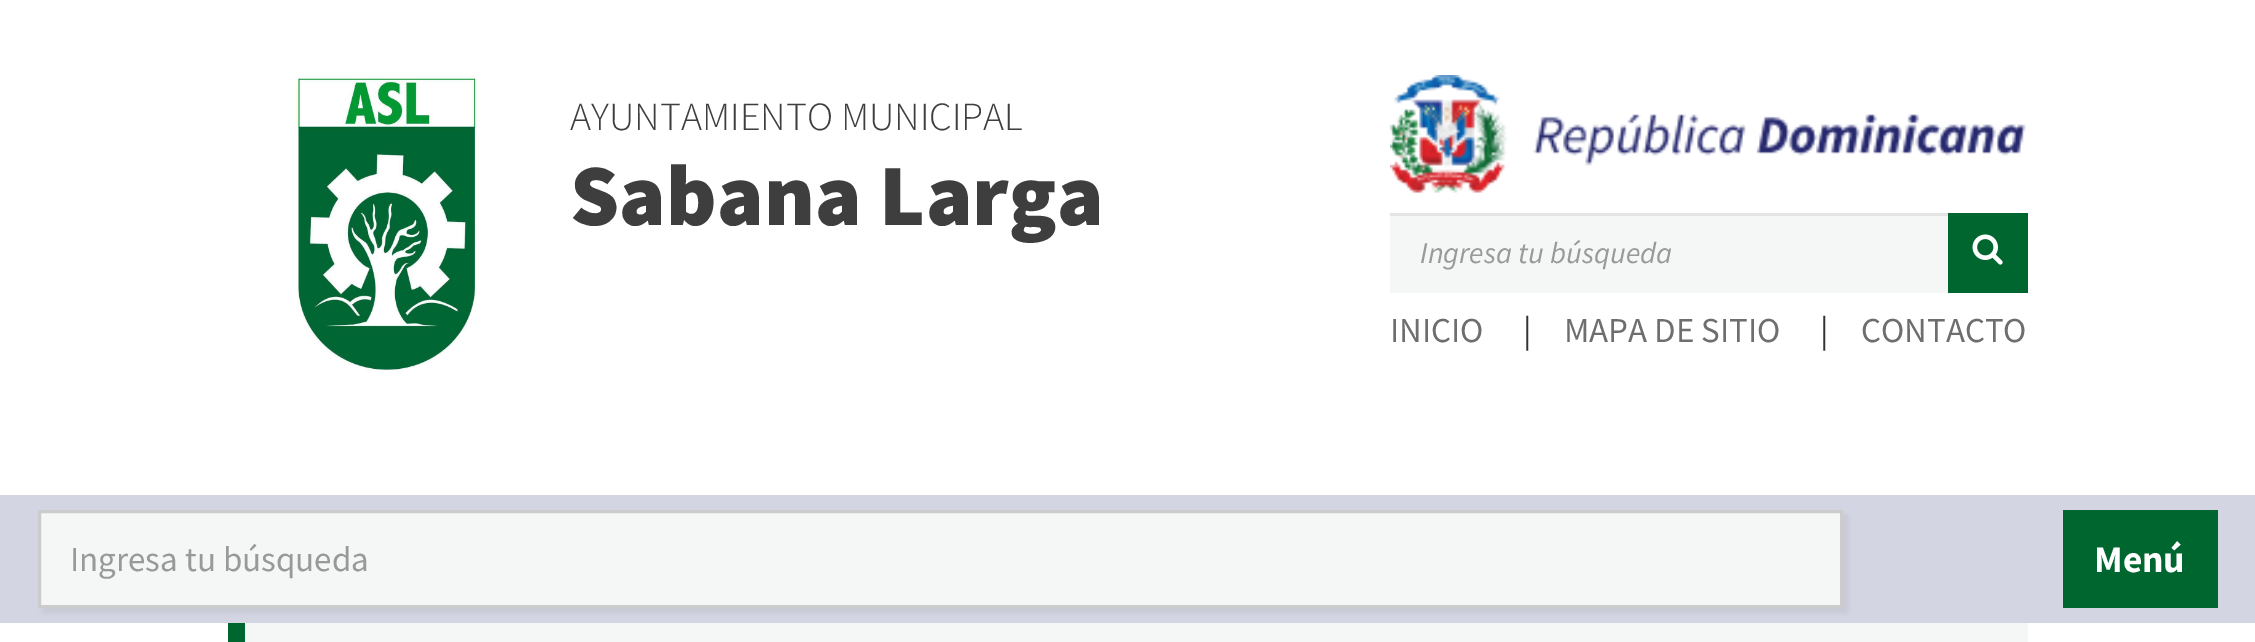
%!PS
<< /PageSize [2255 642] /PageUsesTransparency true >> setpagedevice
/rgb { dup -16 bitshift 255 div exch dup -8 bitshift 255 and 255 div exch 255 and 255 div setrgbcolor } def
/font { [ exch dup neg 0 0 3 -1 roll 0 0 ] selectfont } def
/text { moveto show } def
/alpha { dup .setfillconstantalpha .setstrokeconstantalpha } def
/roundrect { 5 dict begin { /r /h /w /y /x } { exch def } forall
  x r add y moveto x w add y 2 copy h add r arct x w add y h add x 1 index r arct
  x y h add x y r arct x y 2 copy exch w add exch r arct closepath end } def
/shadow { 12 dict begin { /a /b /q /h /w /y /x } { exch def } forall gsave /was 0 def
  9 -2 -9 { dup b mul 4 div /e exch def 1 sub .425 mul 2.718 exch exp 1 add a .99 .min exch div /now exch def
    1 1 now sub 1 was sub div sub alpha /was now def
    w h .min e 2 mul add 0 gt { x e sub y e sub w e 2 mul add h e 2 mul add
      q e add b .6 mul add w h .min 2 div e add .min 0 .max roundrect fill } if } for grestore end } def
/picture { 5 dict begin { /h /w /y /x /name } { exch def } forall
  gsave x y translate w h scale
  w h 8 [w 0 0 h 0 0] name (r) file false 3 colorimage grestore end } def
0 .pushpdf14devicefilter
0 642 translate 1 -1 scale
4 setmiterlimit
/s1 { /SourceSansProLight-Light 40 font 16#3E3E3E rgb } def
/s2 { /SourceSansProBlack-Black 87.5 font 16#3E3E3E rgb } def
/s3 { /SourceSansPro-Italic 30 font 16#999999 rgb } def
/s4 { /SourceSansPro-Regular 35 font 16#6E6E6E rgb } def
/s5 { /SourceSansPro-Regular 35 font 16#333333 rgb } def
/s6 { /SourceSansPro-Regular 35 font 16#999999 rgb } def
/s7 { /SourceSansPro-Bold 37.5 font 16#FFFFFF rgb } def
16#FFFFFF rgb
0 0 2255 642 rectfill
(pic1.raw) 296 75 181 298 picture
s1
(AYUNTAMIENTO MUNICIPAL) 570 130 text
s2
(Sabana Larga) 570 225 text
(pic2.raw) 1390 75 636 118 picture
16#F5F6F6 rgb
1390 216 558 77 rectfill
16#E3E4E4 rgb
1390 213 558 3 rectfill
s3
(Ingresa tu búsqueda) 1420 263 text
16#00662F rgb
1948 213 80 80 rectfill
(pic3.raw) 1972 234 31 31 picture
s4
(INICIO) 1390 342 text
s5
(|) 1523 342 text
s4
(MAPA DE SITIO) 1564 342 text
s5
(|) 1820 342 text
s4
(CONTACTO) 1861 342 text
16#D4D5E3 rgb
0 495 2255 128 rectfill
16#000000 rgb
43 515 1805 98 0 2.5 0.05 shadow
16#F5F6F6 rgb
39.5 511.5 moveto 1841.5 511.5 lineto 1841.5 606.5 lineto 39.5 606.5 lineto closepath gsave fill grestore
16#CCCCCC rgb
3 setlinewidth
stroke
s6
(Ingresa tu búsqueda) 70 571 text
16#00662F rgb
2063 510 155 98 rectfill
s7
(Menú) 2094 572 text
16#F5F6F6 rgb
245 623 1783 19 rectfill
16#00662F rgb
228 623 17 19 rectfill
.poppdf14devicefilter showpage
